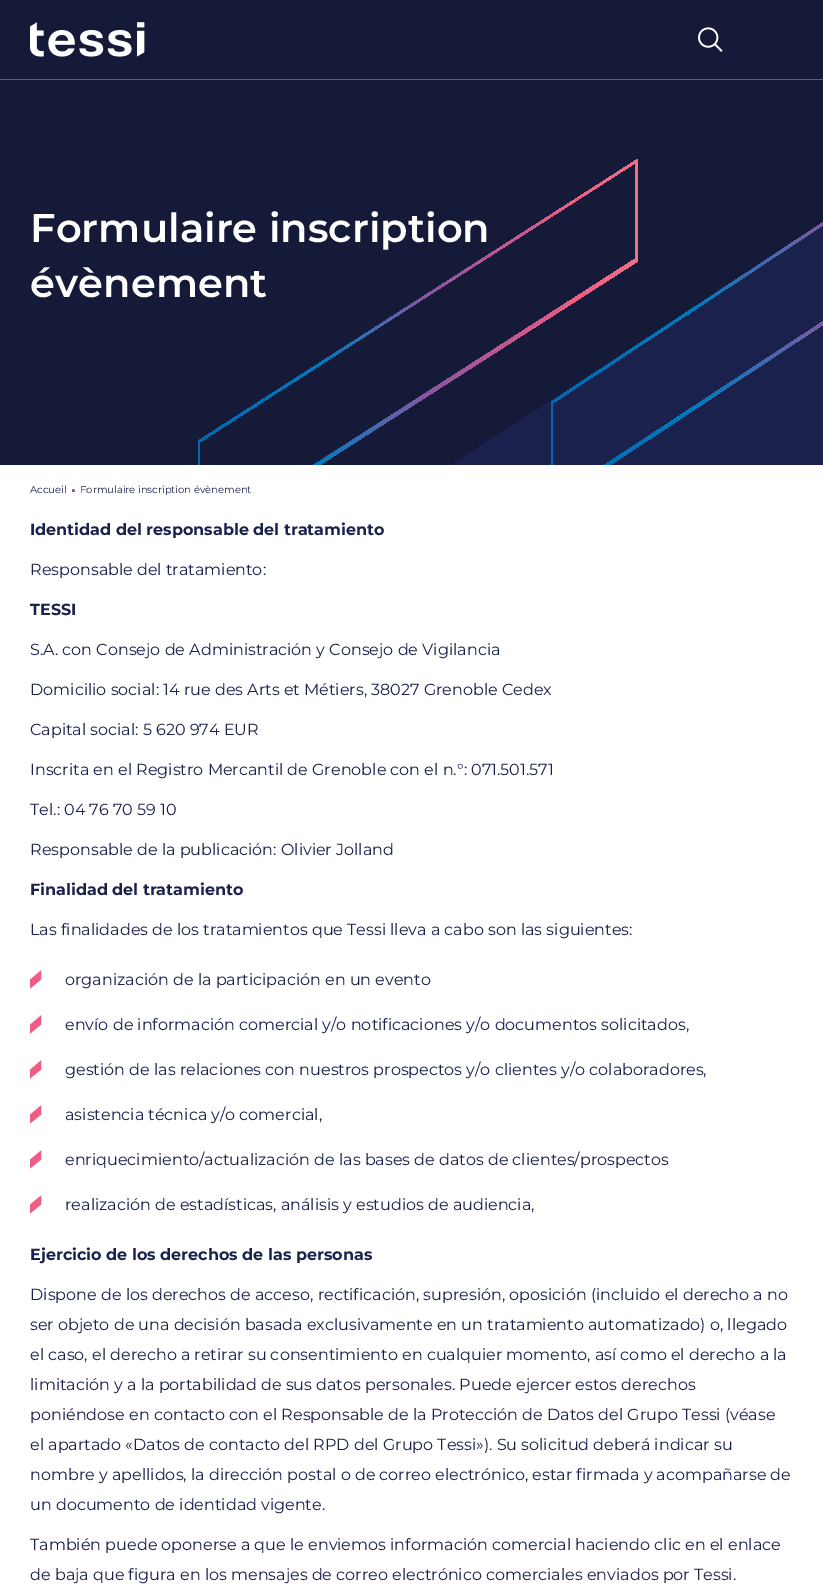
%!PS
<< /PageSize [823 1593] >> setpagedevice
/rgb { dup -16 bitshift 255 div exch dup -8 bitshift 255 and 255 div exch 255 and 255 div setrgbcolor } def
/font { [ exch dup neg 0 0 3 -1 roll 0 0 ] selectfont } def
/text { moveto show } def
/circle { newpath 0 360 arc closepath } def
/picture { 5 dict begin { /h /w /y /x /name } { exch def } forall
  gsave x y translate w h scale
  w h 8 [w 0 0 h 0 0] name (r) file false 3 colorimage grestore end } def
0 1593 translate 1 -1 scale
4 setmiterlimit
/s1 { /Montserrat-Regular 10 font 16#1A214D rgb } def
/s2 { /Montserrat-Bold 16 font 16#1A214D rgb } def
/s3 { /Montserrat-Regular 16 font 16#1A214D rgb } def
16#FFFFFF rgb
0 0 823 1593 rectfill
16#161A39 rgb
0 0 823 465 rectfill
16#5C5F74 rgb
0 79 823 1 rectfill
(pic1.raw) 30 22 115 35 picture
(pic2.raw) 698 27 25 25 picture
gsave
0 80 823 385 rectclip
16#1A214D rgb
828 221 moveto 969 439 lineto 558 705 lineto 417 487 lineto closepath fill
grestore
gsave
198 80 625 385 rectclip
gsave 551 504 moveto 551 402 lineto 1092 45 lineto 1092 147 lineto closepath 553 403 moveto 553 499 lineto 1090 146 lineto 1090 49 lineto closepath clip newpath
<< /ShadingType 2 /ColorSpace /DeviceRGB /Coords [551 459 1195 459] /Extend [true true] /Function << /FunctionType 3 /Domain [0 1] /Functions [<< /FunctionType 2 /Domain [0 1] /C0 [0 0.412 0.69] /C1 [0 0.478 0.745] /N 1 >> << /FunctionType 2 /Domain [0 1] /C0 [0 0.478 0.745] /C1 [0.557 0.333 0.624] /N 1 >> << /FunctionType 2 /Domain [0 1] /C0 [0.557 0.333 0.624] /C1 [0.933 0.365 0.518] /N 1 >> << /FunctionType 2 /Domain [0 1] /C0 [0.933 0.365 0.518] /C1 [0.949 0.525 0.561] /N 1 >>] /Bounds [0.23 0.45 0.72] /Encode [0 1 0 1 0 1 0 1] >> >> shfill grestore
gsave 198 543 moveto 198 441 lineto 638 159 lineto 638 261 lineto closepath 200 442 moveto 200 538 lineto 635 259 lineto 635 163 lineto closepath clip newpath
<< /ShadingType 2 /ColorSpace /DeviceRGB /Coords [198 505 722 505] /Extend [true true] /Function << /FunctionType 3 /Domain [0 1] /Functions [<< /FunctionType 2 /Domain [0 1] /C0 [0 0.412 0.69] /C1 [0 0.478 0.745] /N 1 >> << /FunctionType 2 /Domain [0 1] /C0 [0 0.478 0.745] /C1 [0.557 0.333 0.624] /N 1 >> << /FunctionType 2 /Domain [0 1] /C0 [0.557 0.333 0.624] /C1 [0.933 0.365 0.518] /N 1 >> << /FunctionType 2 /Domain [0 1] /C0 [0.933 0.365 0.518] /C1 [0.949 0.525 0.561] /N 1 >>] /Bounds [0.23 0.45 0.72] /Encode [0 1 0 1 0 1 0 1] >> >> shfill grestore
grestore
/Montserrat-SemiBold 40 font
16#FFFFFF rgb
30 242 moveto 0.1 0 (Formulaire inscription) ashow
30 297 moveto 0.1 0 (évènement) ashow
s1
(Accueil) 30 493 text
gsave 73.5 490.5 1.5 circle clip newpath
<< /ShadingType 2 /ColorSpace /DeviceRGB /Coords [72 492 75 489] /Extend [true true] /Function << /FunctionType 3 /Domain [0 1] /Functions [<< /FunctionType 2 /Domain [0 1] /C0 [0 0.412 0.69] /C1 [0 0.478 0.745] /N 1 >> << /FunctionType 2 /Domain [0 1] /C0 [0 0.478 0.745] /C1 [0.557 0.333 0.624] /N 1 >> << /FunctionType 2 /Domain [0 1] /C0 [0.557 0.333 0.624] /C1 [0.933 0.365 0.518] /N 1 >> << /FunctionType 2 /Domain [0 1] /C0 [0.933 0.365 0.518] /C1 [0.949 0.525 0.561] /N 1 >>] /Bounds [0.2 0.4 0.8] /Encode [0 1 0 1 0 1 0 1] >> >> shfill grestore
(Formulaire inscription évènement) 80 493 text
s2
(Identidad del responsable del tratamiento) 30 535 text
s3
(Responsable del tratamiento:) 30 575 text
s2
(TESSI) 30 615 text
s3
(S.A. con Consejo de Administración y Consejo de Vigilancia) 30 655 text
(Domicilio social: 14 rue des Arts et Métiers, 38027 Grenoble Cedex) 30 695 text
(Capital social: 5 620 974 EUR) 30 735 text
(Inscrita en el Registro Mercantil de Grenoble con el n.°: 071.501.571) 30 775 text
(Tel.: 04 76 70 59 10) 30 815 text
(Responsable de la publicación: Olivier Jolland) 30 855 text
s2
(Finalidad del tratamiento) 30 895 text
s3
(Las finalidades de los tratamientos que Tessi lleva a cabo son las siguientes:) 30 935 text
(pic3.raw) 30 970 12 19 picture
(organización de la participación en un evento) 65 985 text
(pic4.raw) 30 1015 12 19 picture
(envío de información comercial y/o notificaciones y/o documentos solicitados,) 65 1030 text
(pic3.raw) 30 1060 12 19 picture
(gestión de las relaciones con nuestros prospectos y/o clientes y/o colaboradores,) 65 1075 text
(pic3.raw) 30 1105 12 19 picture
(asistencia técnica y/o comercial,) 65 1120 text
(pic3.raw) 30 1150 12 19 picture
(enriquecimiento/actualización de las bases de datos de clientes/prospectos) 65 1165 text
(pic3.raw) 30 1195 12 19 picture
(realización de estadísticas, análisis y estudios de audiencia,) 65 1210 text
s2
(Ejercicio de los derechos de las personas) 30 1260 text
s3
(Dispone de los derechos de acceso, rectificación, supresión, oposición \(incluido el derecho a no) 30 1300 text
(ser objeto de una decisión basada exclusivamente en un tratamiento automatizado\) o, llegado) 30 1330 text
(el caso, el derecho a retirar su consentimiento en cualquier momento, así como el derecho a la) 30 1360 text
(limitación y a la portabilidad de sus datos personales. Puede ejercer estos derechos) 30 1390 text
(poniéndose en contacto con el Responsable de la Protección de Datos del Grupo Tessi \(véase) 30 1420 text
(el apartado «Datos de contacto del RPD del Grupo Tessi»\). Su solicitud deberá indicar su) 30 1450 text
(nombre y apellidos, la dirección postal o de correo electrónico, estar firmada y acompañarse de) 30 1480 text
(un documento de identidad vigente.) 30 1510 text
(También puede oponerse a que le enviemos información comercial haciendo clic en el enlace) 30 1550 text
(de baja que figura en los mensajes de correo electrónico comerciales enviados por Tessi.) 30 1580 text
showpage
